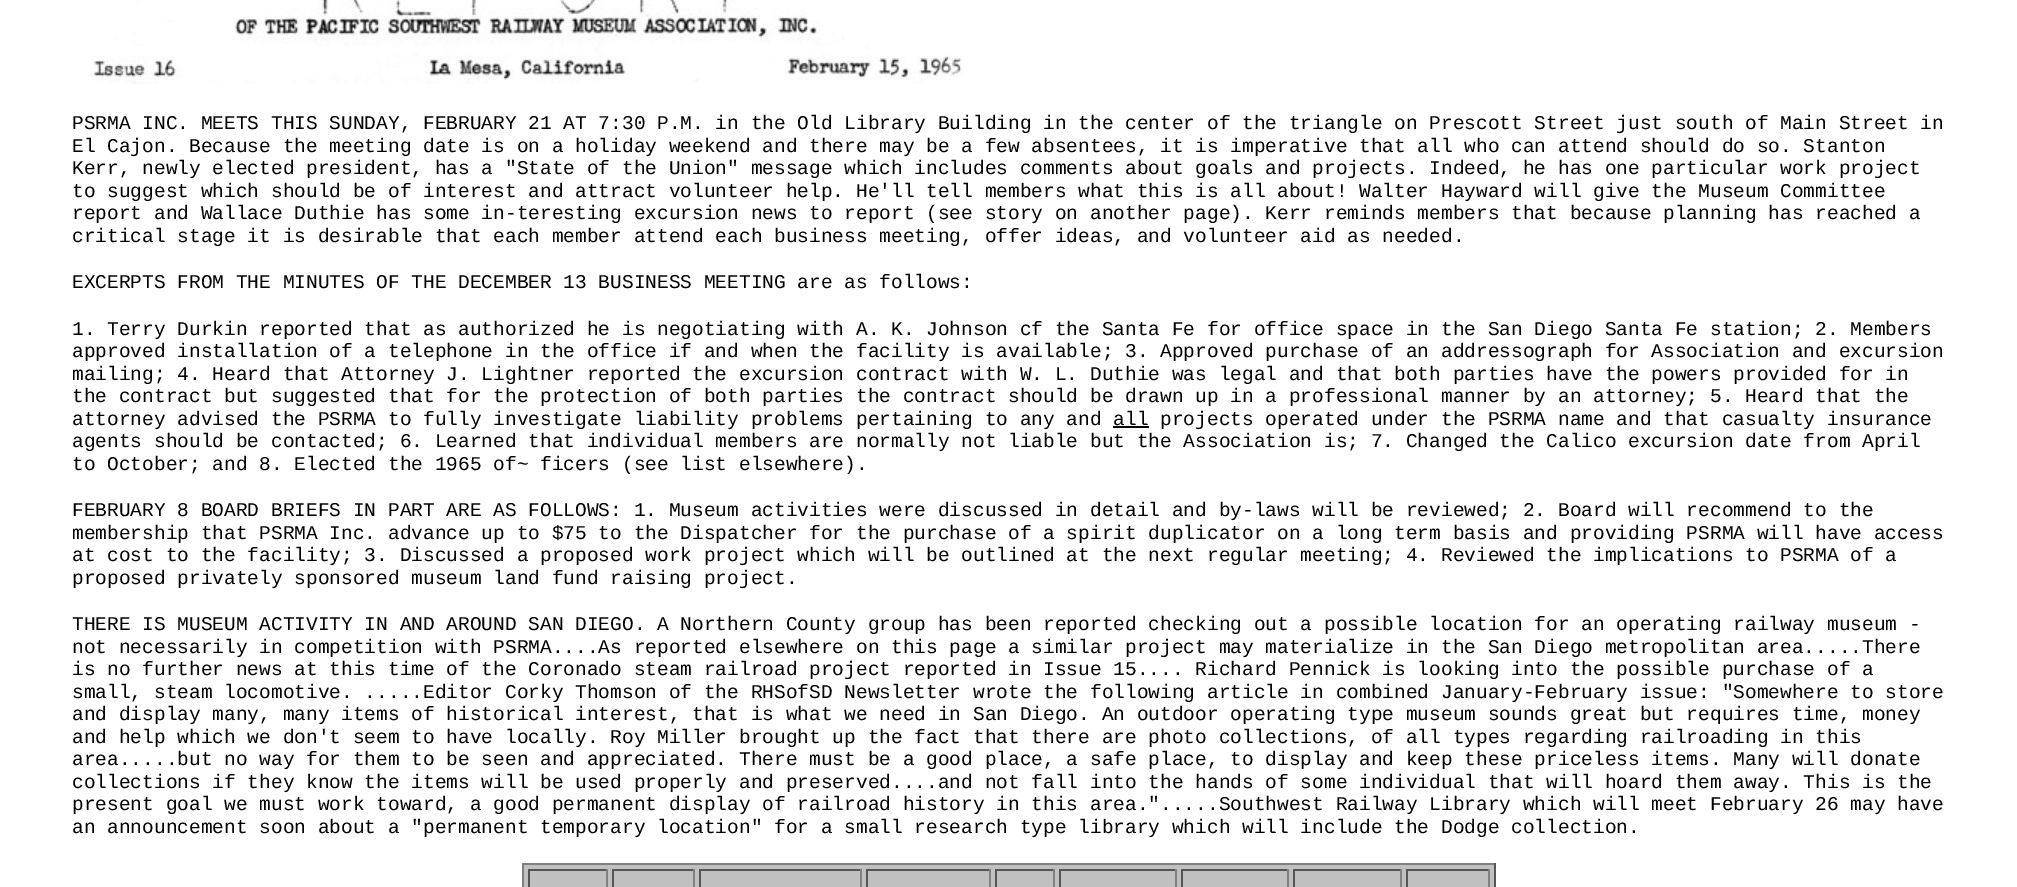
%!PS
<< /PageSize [2017 887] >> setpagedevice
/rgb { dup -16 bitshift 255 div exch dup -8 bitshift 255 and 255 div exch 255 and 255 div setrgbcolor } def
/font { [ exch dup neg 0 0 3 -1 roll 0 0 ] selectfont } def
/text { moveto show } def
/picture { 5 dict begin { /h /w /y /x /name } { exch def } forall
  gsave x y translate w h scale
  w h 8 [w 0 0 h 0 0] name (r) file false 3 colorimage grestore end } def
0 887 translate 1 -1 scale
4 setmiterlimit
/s1 { /LiberationMono-Regular 19.5 font 16#000000 rgb } def
16#FFFFFF rgb
0 0 2017 887 rectfill
(pic1.raw) 90 0 874 84 picture
s1
(PSRMA INC. MEETS THIS SUNDAY, FEBRUARY 21 AT 7:30 P.M. in the Old Library Building in the center of the triangle on Prescott Street just south of Main Street in) 72 129 text
(El Cajon. Because the meeting date is on a holiday weekend and there may be a few absentees, it is imperative that all who can attend should do so. Stanton) 72 152 text
(Kerr, newly elected president, has a "State of the Union" message which includes comments about goals and projects. Indeed, he has one particular work project) 72 174 text
(to suggest which should be of interest and attract volunteer help. He'll tell members what this is all about! Walter Hayward will give the Museum Committee) 72 197 text
(report and Wallace Duthie has some in-teresting excursion news to report \(see story on another page\). Kerr reminds members that because planning has reached a) 72 219 text
(critical stage it is desirable that each member attend each business meeting, offer ideas, and volunteer aid as needed.) 72 242 text
(EXCERPTS FROM THE MINUTES OF THE DECEMBER 13 BUSINESS MEETING are as follows:) 72 288 text
(1. Terry Durkin reported that as authorized he is negotiating with A. K. Johnson cf the Santa Fe for office space in the San Diego Santa Fe station; 2. Members) 72 335 text
(approved installation of a telephone in the office if and when the facility is available; 3. Approved purchase of an addressograph for Association and excursion) 72 357 text
(mailing; 4. Heard that Attorney J. Lightner reported the excursion contract with W. L. Duthie was legal and that both parties have the powers provided for in) 72 380 text
(the contract but suggested that for the protection of both parties the contract should be drawn up in a professional manner by an attorney; 5. Heard that the) 72 402 text
(attorney advised the PSRMA to fully investigate liability problems pertaining to any and all projects operated under the PSRMA name and that casualty insurance) 72 425 text
1113 426 36 2 rectfill
(agents should be contacted; 6. Learned that individual members are normally not liable but the Association is; 7. Changed the Calico excursion date from April) 72 447 text
(to October; and 8. Elected the 1965 of~ ficers \(see list elsewhere\).) 72 470 text
(FEBRUARY 8 BOARD BRIEFS IN PART ARE AS FOLLOWS: 1. Museum activities were discussed in detail and by-laws will be reviewed; 2. Board will recommend to the) 72 516 text
(membership that PSRMA Inc. advance up to $75 to the Dispatcher for the purchase of a spirit duplicator on a long term basis and providing PSRMA will have access) 72 539 text
(at cost to the facility; 3. Discussed a proposed work project which will be outlined at the next regular meeting; 4. Reviewed the implications to PSRMA of a) 72 561 text
(proposed privately sponsored museum land fund raising project.) 72 584 text
(THERE IS MUSEUM ACTIVITY IN AND AROUND SAN DIEGO. A Northern County group has been reported checking out a possible location for an operating railway museum -) 72 630 text
(not necessarily in competition with PSRMA....As reported elsewhere on this page a similar project may materialize in the San Diego metropolitan area.....There) 72 653 text
(is no further news at this time of the Coronado steam railroad project reported in Issue 15.... Richard Pennick is looking into the possible purchase of a) 72 675 text
(small, steam locomotive. .....Editor Corky Thomson of the RHSofSD Newsletter wrote the following article in combined January-February issue: "Somewhere to store) 72 698 text
(and display many, many items of historical interest, that is what we need in San Diego. An outdoor operating type museum sounds great but requires time, money) 72 720 text
(and help which we don't seem to have locally. Roy Miller brought up the fact that there are photo collections, of all types regarding railroading in this) 72 743 text
(area.....but no way for them to be seen and appreciated. There must be a good place, a safe place, to display and keep these priceless items. Many will donate) 72 765 text
(collections if they know the items will be used properly and preserved....and not fall into the hands of some individual that will hoard them away. This is the) 72 788 text
(present goal we must work toward, a good permanent display of railroad history in this area.".....Southwest Railway Library which will meet February 26 may have) 72 810 text
(an announcement soon about a "permanent temporary location" for a small research type library which will include the Dodge collection.) 72 833 text
16#C0C0C0 rgb
524 865 970 22 rectfill
16#808080 rgb
522 863 974 2 rectfill
16#555555 rgb
1494 863 2 24 rectfill
16#808080 rgb
522 863 2 24 rectfill
16#555555 rgb
528 869 80 2 rectfill
16#808080 rgb
606 869 2 18 rectfill
16#555555 rgb
528 869 2 18 rectfill
612 869 83 2 rectfill
16#808080 rgb
693 869 2 18 rectfill
16#555555 rgb
612 869 2 18 rectfill
699 869 162 2 rectfill
16#808080 rgb
860 869 2 18 rectfill
16#555555 rgb
699 869 2 18 rectfill
866 869 124 2 rectfill
16#808080 rgb
989 869 2 18 rectfill
16#555555 rgb
866 869 2 18 rectfill
995 869 60 2 rectfill
16#808080 rgb
1053 869 2 18 rectfill
16#555555 rgb
995 869 2 18 rectfill
1059 869 117 2 rectfill
16#808080 rgb
1175 869 2 18 rectfill
16#555555 rgb
1059 869 2 18 rectfill
1181 869 108 2 rectfill
16#808080 rgb
1287 869 2 18 rectfill
16#555555 rgb
1181 869 2 18 rectfill
1293 869 108 2 rectfill
16#808080 rgb
1400 869 2 18 rectfill
16#555555 rgb
1293 869 2 18 rectfill
1406 869 84 2 rectfill
16#808080 rgb
1488 869 2 18 rectfill
16#555555 rgb
1406 869 2 18 rectfill
showpage
